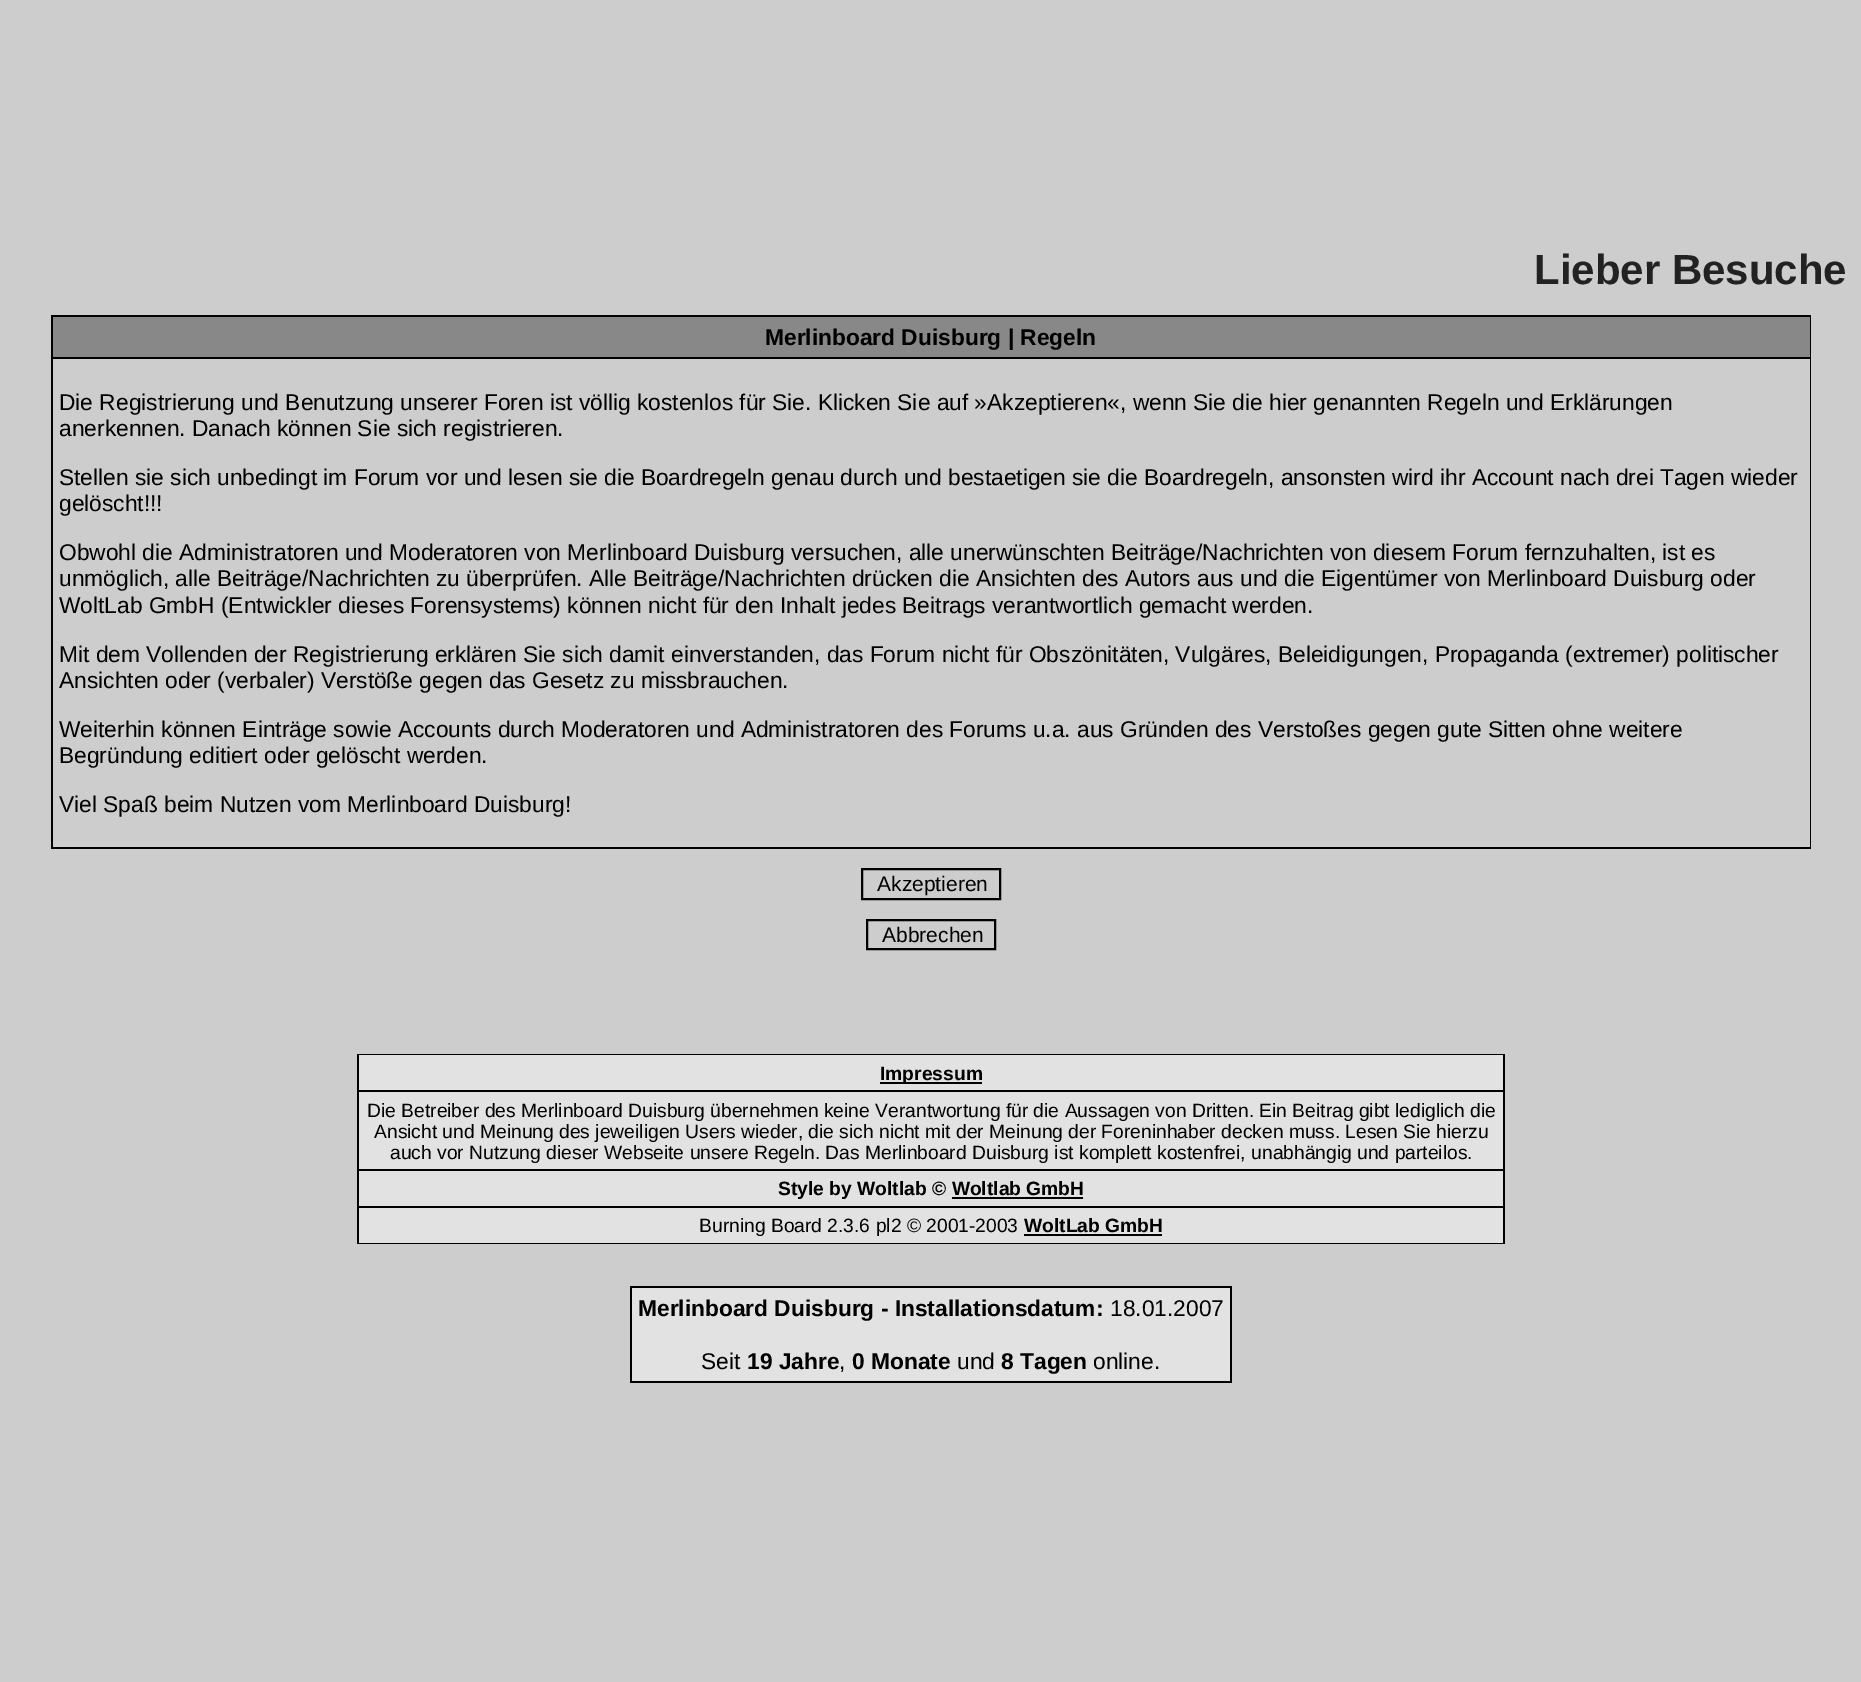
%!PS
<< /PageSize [1861 1682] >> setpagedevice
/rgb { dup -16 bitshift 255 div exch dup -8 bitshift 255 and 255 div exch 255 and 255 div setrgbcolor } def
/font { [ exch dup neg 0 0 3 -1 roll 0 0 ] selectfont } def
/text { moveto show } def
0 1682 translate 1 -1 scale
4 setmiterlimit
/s1 { /LiberationSans-Bold 42 font 16#222222 rgb } def
/s2 { /LiberationSans-Bold 22.75 font 16#000000 rgb } def
/s3 { /LiberationSans-Regular 22.75 font 16#000000 rgb } def
/s4 { /LiberationSans-Regular 21 font 16#000000 rgb } def
/s5 { /LiberationSans-Bold 19.25 font 16#000000 rgb } def
/s6 { /LiberationSans-Regular 19.25 font 16#000000 rgb } def
16#CDCDCD rgb
0 0 1861 1682 rectfill
s1
(Lieber Besuche) 1534 284 text
16#000000 rgb
51 315 1760 534 rectfill
16#888888 rgb
53 317 1757 40 rectfill
s2
(Merlinboard Duisburg | Regeln) 765 345 text
16#CDCDCD rgb
53 359 1757 488 rectfill
s3
(Die Registrierung und Benutzung unserer Foren ist völlig kostenlos für Sie. Klicken Sie auf »Akzeptieren«, wenn Sie die hier genannten Regeln und Erklärungen) 59 410 text
(anerkennen. Danach können Sie sich registrieren.) 59 436 text
(Stellen sie sich unbedingt im Forum vor und lesen sie die Boardregeln genau durch und bestaetigen sie die Boardregeln, ansonsten wird ihr Account nach drei Tagen wieder) 59 485 text
(gelöscht!!!) 59 511 text
(Obwohl die Administratoren und Moderatoren von Merlinboard Duisburg versuchen, alle unerwünschten Beiträge/Nachrichten von diesem Forum fernzuhalten, ist es) 59 560 text
(unmöglich, alle Beiträge/Nachrichten zu überprüfen. Alle Beiträge/Nachrichten drücken die Ansichten des Autors aus und die Eigentümer von Merlinboard Duisburg oder) 59 586 text
(WoltLab GmbH \(Entwickler dieses Forensystems\) können nicht für den Inhalt jedes Beitrags verantwortlich gemacht werden.) 59 613 text
(Mit dem Vollenden der Registrierung erklären Sie sich damit einverstanden, das Forum nicht für Obszönitäten, Vulgäres, Beleidigungen, Propaganda \(extremer\) politischer) 59 662 text
(Ansichten oder \(verbaler\) Verstöße gegen das Gesetz zu missbrauchen.) 59 688 text
(Weiterhin können Einträge sowie Accounts durch Moderatoren und Administratoren des Forums u.a. aus Gründen des Verstoßes gegen gute Sitten ohne weitere) 59 737 text
(Begründung editiert oder gelöscht werden.) 59 763 text
(Viel Spaß beim Nutzen vom Merlinboard Duisburg!) 59 812 text
2 setlinewidth
862 869 138 30 rectstroke
s4
(Akzeptieren) 877 891 text
867 920 128 29 rectstroke
(Abbrechen) 882 942 text
357 1054 1148 190 rectfill
16#E2E2E2 rgb
359 1055 1144 35 rectfill
16#000000 rgb
880 1082 102 2 rectfill
s5
(Impressum) 880 1080 text
16#E2E2E2 rgb
359 1092 1144 77 rectfill
s6
(Die Betreiber des Merlinboard Duisburg übernehmen keine Verantwortung für die Aussagen von Dritten. Ein Beitrag gibt lediglich die) 367 1117 text
(Ansicht und Meinung des jeweiligen Users wieder, die sich nicht mit der Meinung der Foreninhaber decken muss. Lesen Sie hierzu) 374 1138 text
(auch vor Nutzung dieser Webseite unsere Regeln. Das Merlinboard Duisburg ist komplett kostenfrei, unabhängig und parteilos.) 390 1159 text
16#E2E2E2 rgb
359 1171 1144 35 rectfill
s5
(Style by Woltlab © Woltlab GmbH) 778 1195 text
952 1197 131 2 rectfill
16#E2E2E2 rgb
359 1208 1144 35 rectfill
s6
(Burning Board 2.3.6 pl2 © 2001-2003) 699 1232 text
s5
(WoltLab GmbH) 1024 1232 text
1024 1234 138 2 rectfill
630 1286 602 97 rectfill
16#E2E2E2 rgb
632 1288 598 93 rectfill
s2
(Merlinboard Duisburg - Installationsdatum:) 638 1316 text
s3
(18.01.2007) 1110 1316 text
(Seit) 701 1369 text
s2
(19 Jahre) 747 1369 text
s3
(,) 839 1369 text
s2
(0 Monate) 852 1369 text
s3
(und) 957 1369 text
s2
(8 Tagen) 1001 1369 text
s3
(online.) 1093 1369 text
showpage
